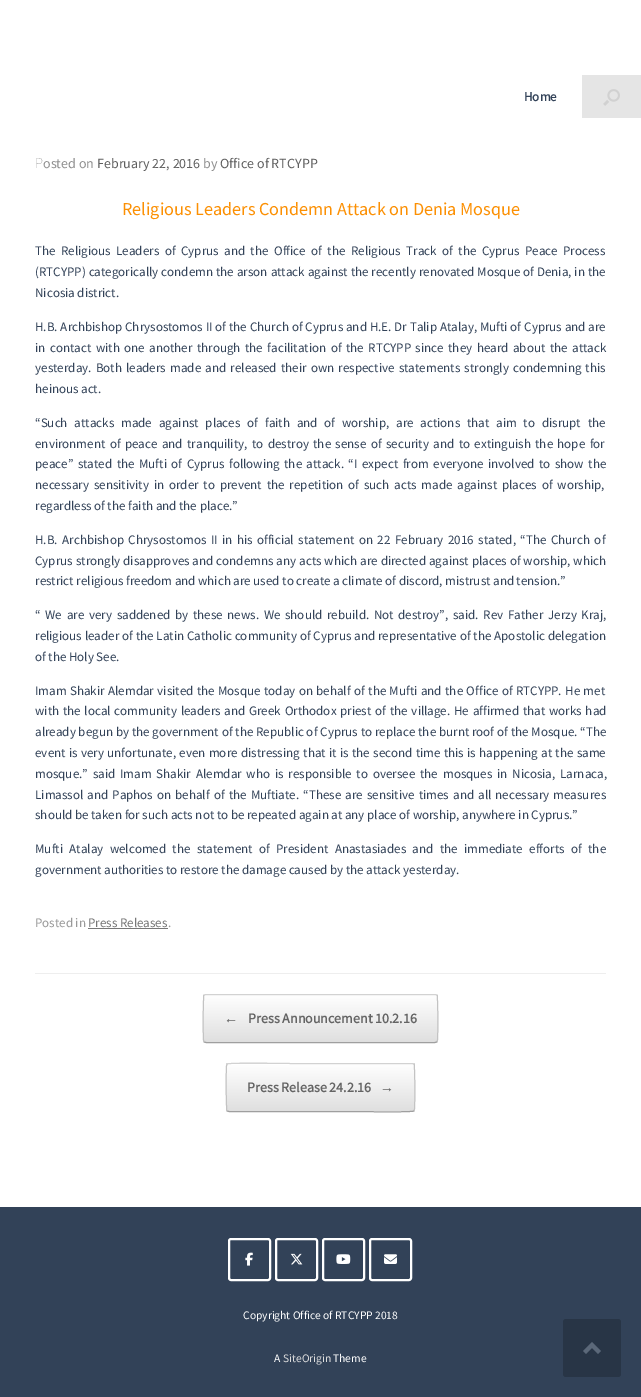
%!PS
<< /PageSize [641 1397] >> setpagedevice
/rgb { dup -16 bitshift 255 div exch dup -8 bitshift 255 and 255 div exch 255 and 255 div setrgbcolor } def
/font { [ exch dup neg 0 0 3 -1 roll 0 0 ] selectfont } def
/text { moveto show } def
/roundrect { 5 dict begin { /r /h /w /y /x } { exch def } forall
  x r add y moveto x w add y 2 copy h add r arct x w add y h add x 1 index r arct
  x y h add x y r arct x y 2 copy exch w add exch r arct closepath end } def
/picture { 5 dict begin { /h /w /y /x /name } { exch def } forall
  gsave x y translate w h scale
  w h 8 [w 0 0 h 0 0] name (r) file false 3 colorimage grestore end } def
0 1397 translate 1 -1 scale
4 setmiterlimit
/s1 { /SourceSansPro-Bold 13 font 16#324258 rgb } def
/s2 { /NotoSans-Thin 14 font 16#8F8F8F rgb } def
/s3 { /SourceSansPro-Regular 14 font 16#8F8F8F rgb } def
/s4 { /SourceSansPro-Regular 14 font 16#5E5E5E rgb } def
/s5 { /SourceSansPro-Regular 18.2 font 16#FC9003 rgb } def
/s6 { /SourceSansPro-Regular 13 font 16#324258 rgb } def
/s7 { /SourceSansPro-Regular 13 font 16#999999 rgb } def
/s8 { /SourceSansPro-Regular 13 font 16#777777 rgb } def
/s9 { /LiberationSerif-Bold 14 font 16#646464 rgb } def
/s10 { /SourceSansPro-Bold 14 font 16#646464 rgb } def
/s11 { /SourceSansPro-Regular 11.5 font 16#FFFFFF rgb } def
/s12 { /SourceSansPro-Regular 11.5 font 16#DDDDDD rgb } def
16#324258 rgb
0 0 641 1397 rectfill
16#FFFFFF rgb
0 0 641 1207 rectfill
s1
(Home) 524 101 text
16#E5E5E5 rgb
582 75 59 43 rectfill
(pic1.raw) 603 89 17 17 picture
16#EEEEEE rgb
35 973 571 1 rectfill
s2
(P) 35 168 text
s3
(osted on) 43 168 text
s4
(February 22, 2016) 97 168 text
s3
(by) 203 168 text
s4
(Office of RTCYPP) 220 168 text
s5
(Religious Leaders Condemn Attack on Denia Mosque) 122 215 text
/SourceSansPro-Regular 13 font
16#324258 rgb
35 255 moveto 2.9 0 32 (The Religious Leaders of Cyprus and the Office of the Religious Track of the Cyprus Peace Process) widthshow
35 276 moveto 0.4 0 32 (\(RTCYPP\) categorically condemn the arson attack against the recently renovated Mosque of Denia, in the) widthshow
(Nicosia district.) 35 297 text
35 331 moveto 0.25 0 32 (H.B. Archbishop Chrysostomos II of the Church of Cyprus and H.E. Dr Talip Atalay, Mufti of Cyprus and are) widthshow
35 352 moveto 1.9 0 32 (in contact with one another through the facilitation of the RTCYPP since they heard about the attack) widthshow
35 372 moveto 1.6 0 32 (yesterday. Both leaders made and released their own respective statements strongly condemning this) widthshow
(heinous act.) 35 393 text
35 427 moveto 4.25 0 32 (“Such attacks made against places of faith and of worship, are actions that aim to disrupt the) widthshow
35 448 moveto 1.8 0 32 (environment of peace and tranquility, to destroy the sense of security and to extinguish the hope for) widthshow
35 468 moveto 1.9 0 32 (peace” stated the Mufti of Cyprus following the attack. “I expect from everyone involved to show the) widthshow
35 489 moveto 2.25 0 32 (necessary sensitivity in order to prevent the repetition of such acts made against places of worship,) widthshow
(regardless of the faith and the place.”) 35 510 text
35 544 moveto 1.9 0 32 (H.B. Archbishop Chrysostomos II in his official statement on 22 February 2016 stated, “The Church of) widthshow
35 565 moveto 0.4 0 32 (Cyprus strongly disapproves and condemns any acts which are directed against places of worship, which) widthshow
(restrict religious freedom and which are used to create a climate of discord, mistrust and tension.”) 35 585 text
35 619 moveto 2.1 0 32 (“ We are very saddened by these news. We should rebuild. Not destroy”, said. Rev Father Jerzy Kraj,) widthshow
35 640 moveto 0.25 0 32 (religious leader of the Latin Catholic community of Cyprus and representative of the Apostolic delegation) widthshow
(of the Holy See.) 35 661 text
35 695 moveto 0.8 0 32 (Imam Shakir Alemdar visited the Mosque today on behalf of the Mufti and the Office of RTCYPP. He met) widthshow
35 715 moveto 1.2 0 32 (with the local community leaders and Greek Orthodox priest of the village. He affirmed that works had) widthshow
35 736 moveto 0.2 0 32 (already begun by the government of the Republic of Cyprus to replace the burnt roof of the Mosque. “The) widthshow
35 757 moveto 0.75 0 32 (event is very unfortunate, even more distressing that it is the second time this is happening at the same) widthshow
35 778 moveto 2.25 0 32 (mosque.” said Imam Shakir Alemdar who is responsible to oversee the mosques in Nicosia, Larnaca,) widthshow
35 799 moveto 1.5 0 32 (Limassol and Paphos on behalf of the Muftiate. “These are sensitive times and all necessary measures) widthshow
(should be taken for such acts not to be repeated again at any place of worship, anywhere in Cyprus.”) 35 819 text
35 853 moveto 3.75 0 32 (Mufti Atalay welcomed the statement of President Anastasiades and the immediate efforts of the) widthshow
(government authorities to restore the damage caused by the attack yesterday.) 35 874 text
s7
(Posted in) 35 927 text
s8
(Press Releases) 88 927 text
88 928 80 1 rectfill
s7
(.) 168 927 text
gsave
203 994 235 49 3 roundrect clip newpath
gsave 203 995 moveto 438 995 lineto 438 1042 lineto 203 1042 lineto closepath clip newpath
<< /ShadingType 2 /ColorSpace /DeviceRGB /Coords [204 1042 204 995] /Extend [true true] /Function << /FunctionType 2 /Domain [0 1] /C0 [0.875 0.875 0.875] /C1 [1 1 1] /N 1 >> >> shfill grestore
grestore
16#D2D2D2 rgb
204 995 moveto 206 994.5 lineto 435 994.5 lineto 437 995 lineto stroke
16#C3C3C3 rgb
437 995 moveto 438 996.5 438 1036 437.5 1040 curveto 437 1042 lineto stroke
16#9F9F9F rgb
437 1042 moveto 435 1042.5 lineto 206 1042.5 lineto 204 1042 lineto stroke
16#C3C3C3 rgb
204 1042 moveto 203.5 1040 lineto 203 1036 203 996.5 204 995 curveto stroke
s9
(←) 224 1023 text
s10
(Press Announcement 10.2.16) 248 1023 text
gsave
226 1063 189 49 3 roundrect clip newpath
gsave 226 1063 moveto 415 1063 lineto 415 1064 lineto 226 1064 lineto closepath clip newpath
<< /ShadingType 2 /ColorSpace /DeviceRGB /Coords [227 1064 227 1017] /Extend [true true] /Function << /FunctionType 2 /Domain [0 1] /C0 [0.875 0.875 0.875] /C1 [1 1 1] /N 1 >> >> shfill grestore
gsave 226 1064 moveto 415 1064 lineto 415 1111 lineto 226 1111 lineto closepath clip newpath
<< /ShadingType 2 /ColorSpace /DeviceRGB /Coords [227 1111 227 1064] /Extend [true true] /Function << /FunctionType 2 /Domain [0 1] /C0 [0.875 0.875 0.875] /C1 [1 1 1] /N 1 >> >> shfill grestore
grestore
16#D2D2D2 rgb
227 1064 moveto 229 1062.5 286 1063.5 290 1063.5 curveto 412 1063.5 lineto 414 1064 lineto stroke
16#C3C3C3 rgb
414 1064 moveto 415 1065.5 415 1105 414.5 1109 curveto 414 1111 lineto stroke
16#9F9F9F rgb
414 1111 moveto 412 1112.5 355 1111.5 351 1111.5 curveto 229 1111.5 lineto 227 1111 lineto stroke
16#C3C3C3 rgb
227 1111 moveto 226 1109.5 226 1070 226.5 1066 curveto 227 1064 lineto stroke
s10
(Press Release 24.2.16) 247 1092 text
s9
(→) 380 1092 text
16#FFFFFF rgb
2 setlinewidth
229 1239 41 41 2 roundrect stroke
(pic2.raw) 245 1252 8 14 picture
276 1239 41 41 2 roundrect stroke
(pic3.raw) 290 1253 13 12 picture
323 1239 41 41 2 roundrect stroke
(pic4.raw) 336 1254 15 10 picture
370 1239 41 41 2 roundrect stroke
(pic5.raw) 384 1254 13 10 picture
s11
(Copyright Office of RTCYPP 2018) 243 1319 text
(A) 274 1362 text
s12
(SiteOrigin) 283 1362 text
s11
(Theme) 333 1362 text
16#283546 rgb
563 1319 58 58 3 roundrect fill
16#5B6879 rgb
601 1351 moveto 592 1342 lineto 583 1351 lineto 586 1354 lineto 592 1348 lineto 598 1354 lineto closepath fill
showpage
